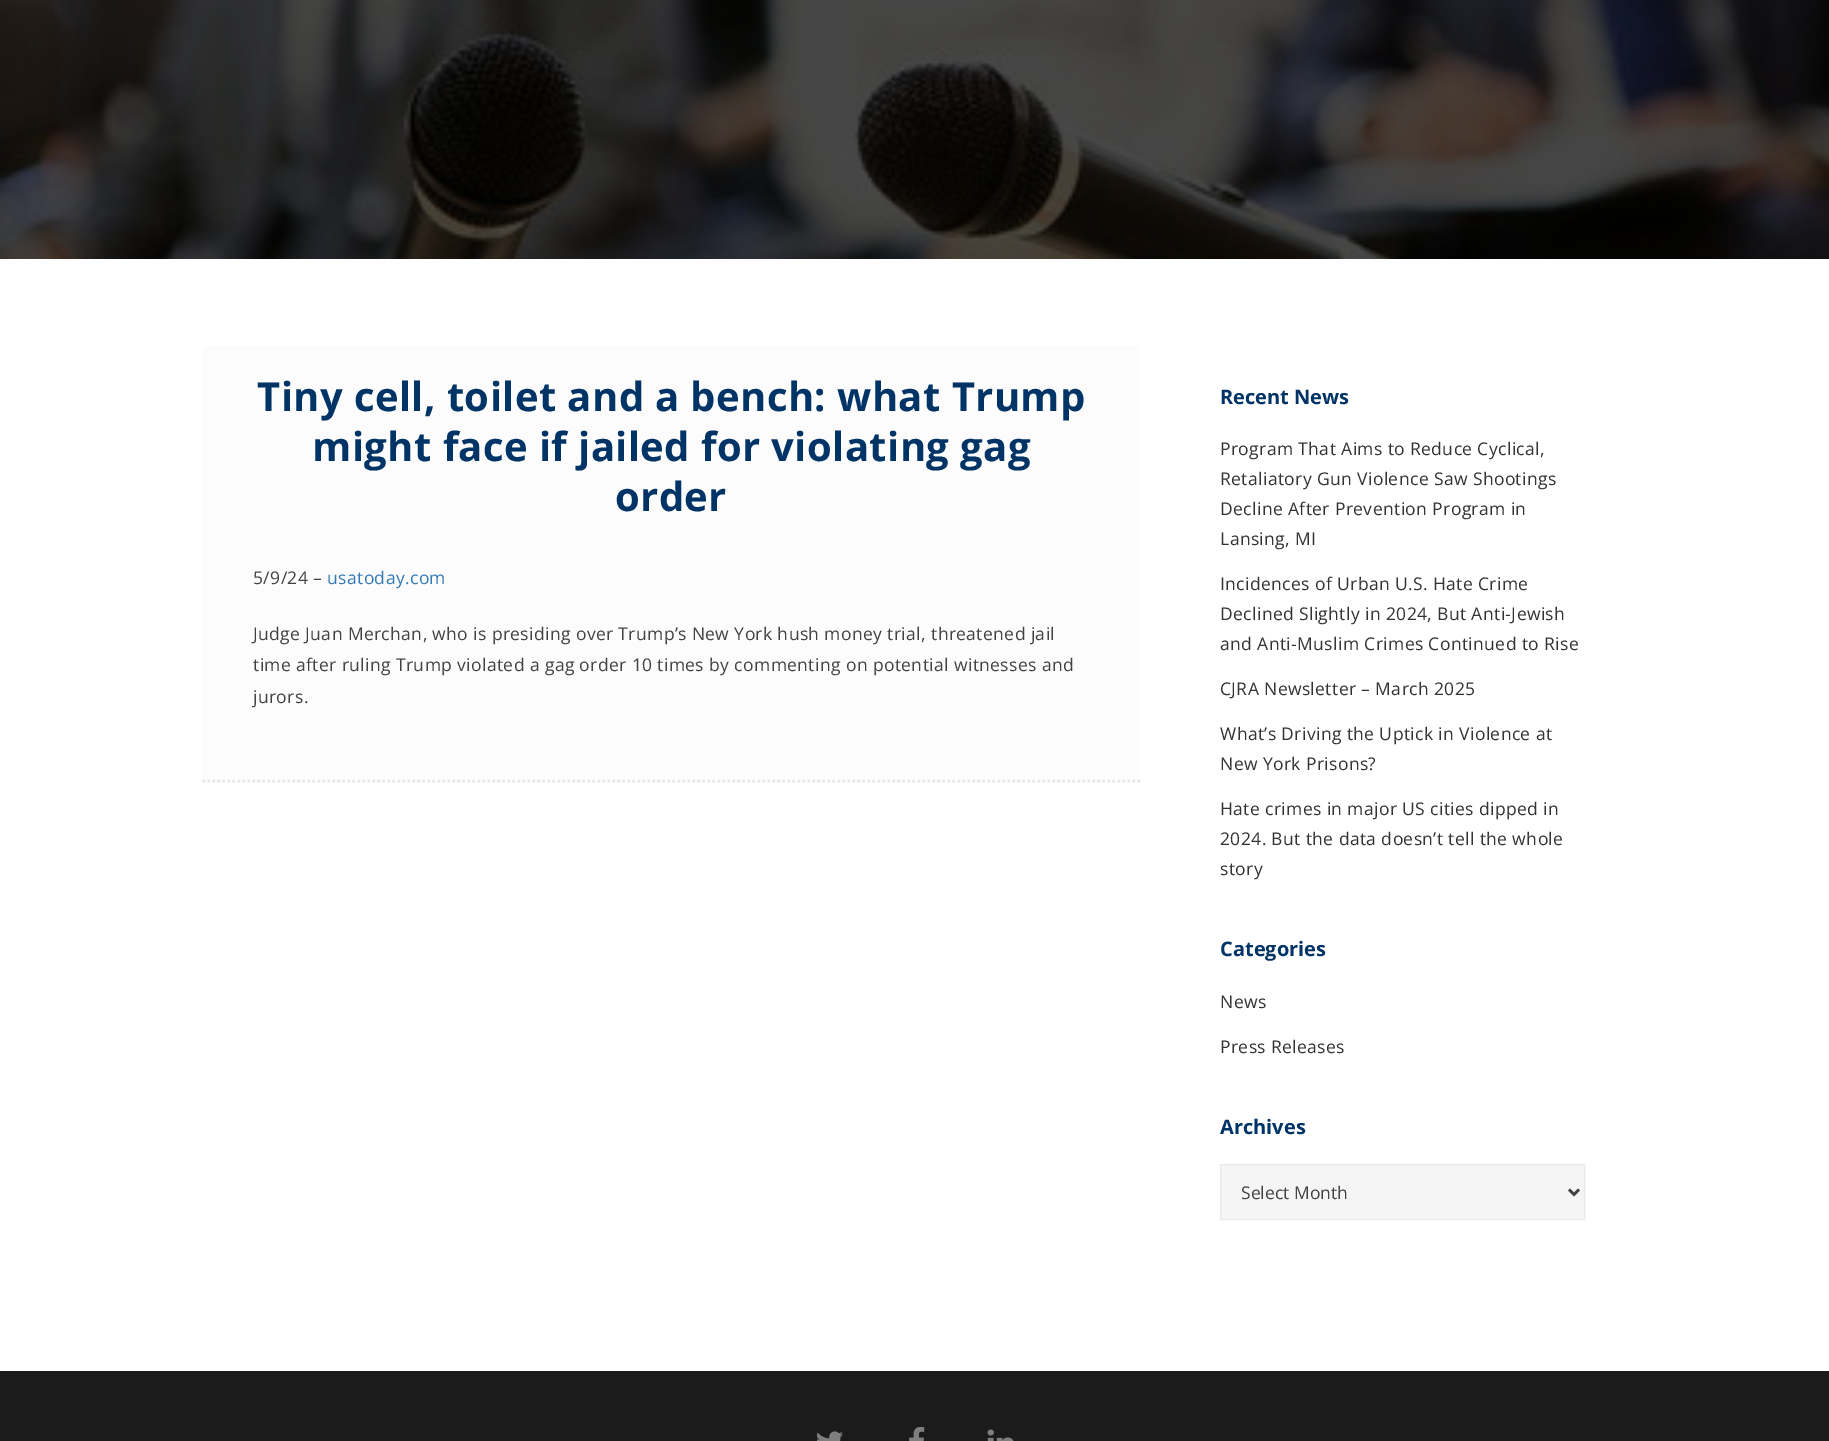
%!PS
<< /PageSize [1829 1441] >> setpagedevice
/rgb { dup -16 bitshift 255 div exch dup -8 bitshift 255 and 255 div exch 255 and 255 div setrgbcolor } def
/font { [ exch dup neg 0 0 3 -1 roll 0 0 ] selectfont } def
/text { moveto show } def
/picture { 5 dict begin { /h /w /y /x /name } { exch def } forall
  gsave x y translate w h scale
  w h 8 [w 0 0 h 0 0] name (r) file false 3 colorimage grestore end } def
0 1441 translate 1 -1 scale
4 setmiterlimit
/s1 { /OpenSans-Bold 20 font 16#003366 rgb } def
/s2 { /OpenSans-Regular 17.5 font 16#424242 rgb } def
16#FFFFFF rgb
0 0 1829 1441 rectfill
(pic1.raw) 0 0 1829 259 picture
16#FCFCFC rgb
203 346 937 437 rectfill
16#E6E6E6 rgb
2.5 setlinewidth
[2.5 2.5] 0 setdash
202.5 781 moveto 1140 781 lineto stroke
/OpenSans-Bold 40 font
16#003366 rgb
257 411 moveto 0.4 0 (Tiny cell, toilet and a bench: what Trump) ashow
312 461 moveto 0.4 0 (might face if jailed for violating gag) ashow
615 511 moveto 0.4 0 (order) ashow
/OpenSans-Regular 17.5 font
16#424242 rgb
253 584 moveto 0.38 0 (5/9/24 –) ashow
16#337AB7 rgb
327 584 moveto 0.38 0 (usatoday.com) ashow
16#424242 rgb
253 640 moveto 0.38 0 (Judge Juan Merchan, who is presiding over Trump’s New York hush money trial, threatened jail) ashow
253 671 moveto 0.38 0 (time after ruling Trump violated a gag order 10 times by commenting on potential witnesses and) ashow
253 703 moveto 0.38 0 (jurors.) ashow
s1
(Recent News) 1220 404 text
/OpenSans-Regular 17.5 font
16#333333 rgb
1220 455 moveto 0.38 0 (Program That Aims to Reduce Cyclical,) ashow
1220 485 moveto 0.38 0 (Retaliatory Gun Violence Saw Shootings) ashow
1220 515 moveto 0.38 0 (Decline After Prevention Program in) ashow
1220 545 moveto 0.38 0 (Lansing, MI) ashow
1220 590 moveto 0.38 0 (Incidences of Urban U.S. Hate Crime) ashow
1220 620 moveto 0.38 0 (Declined Slightly in 2024, But Anti-Jewish) ashow
1220 650 moveto 0.38 0 (and Anti-Muslim Crimes Continued to Rise) ashow
1220 695 moveto 0.38 0 (CJRA Newsletter – March 2025) ashow
1220 740 moveto 0.38 0 (What’s Driving the Uptick in Violence at) ashow
1220 770 moveto 0.38 0 (New York Prisons?) ashow
1220 815 moveto 0.38 0 (Hate crimes in major US cities dipped in) ashow
1220 845 moveto 0.38 0 (2024. But the data doesn’t tell the whole) ashow
1220 875 moveto 0.38 0 (story) ashow
s1
(Categories) 1220 956 text
/OpenSans-Regular 17.5 font
16#333333 rgb
1220 1008 moveto 0.38 0 (News) ashow
1220 1053 moveto 0.38 0 (Press Releases) ashow
s1
(Archives) 1220 1134 text
16#F5F5F5 rgb
1220.5 1164.5 moveto 1584.5 1164.5 lineto 1584.5 1219.5 lineto 1220.5 1219.5 lineto closepath gsave fill grestore
16#E9E9E9 rgb
1 setlinewidth
[] 0 setdash
stroke
16#424242 rgb
2.5 setlinewidth
1569 1189.5 moveto 1574 1194.5 lineto 1579 1189.5 lineto stroke
s2
(Select Month) 1241 1199 text
16#1B1B1B rgb
0 1371 1829 70 rectfill
(pic2.raw) 816 1431 27 10 picture
(pic3.raw) 909 1427 16 14 picture
(pic4.raw) 987 1429 27 12 picture
showpage
